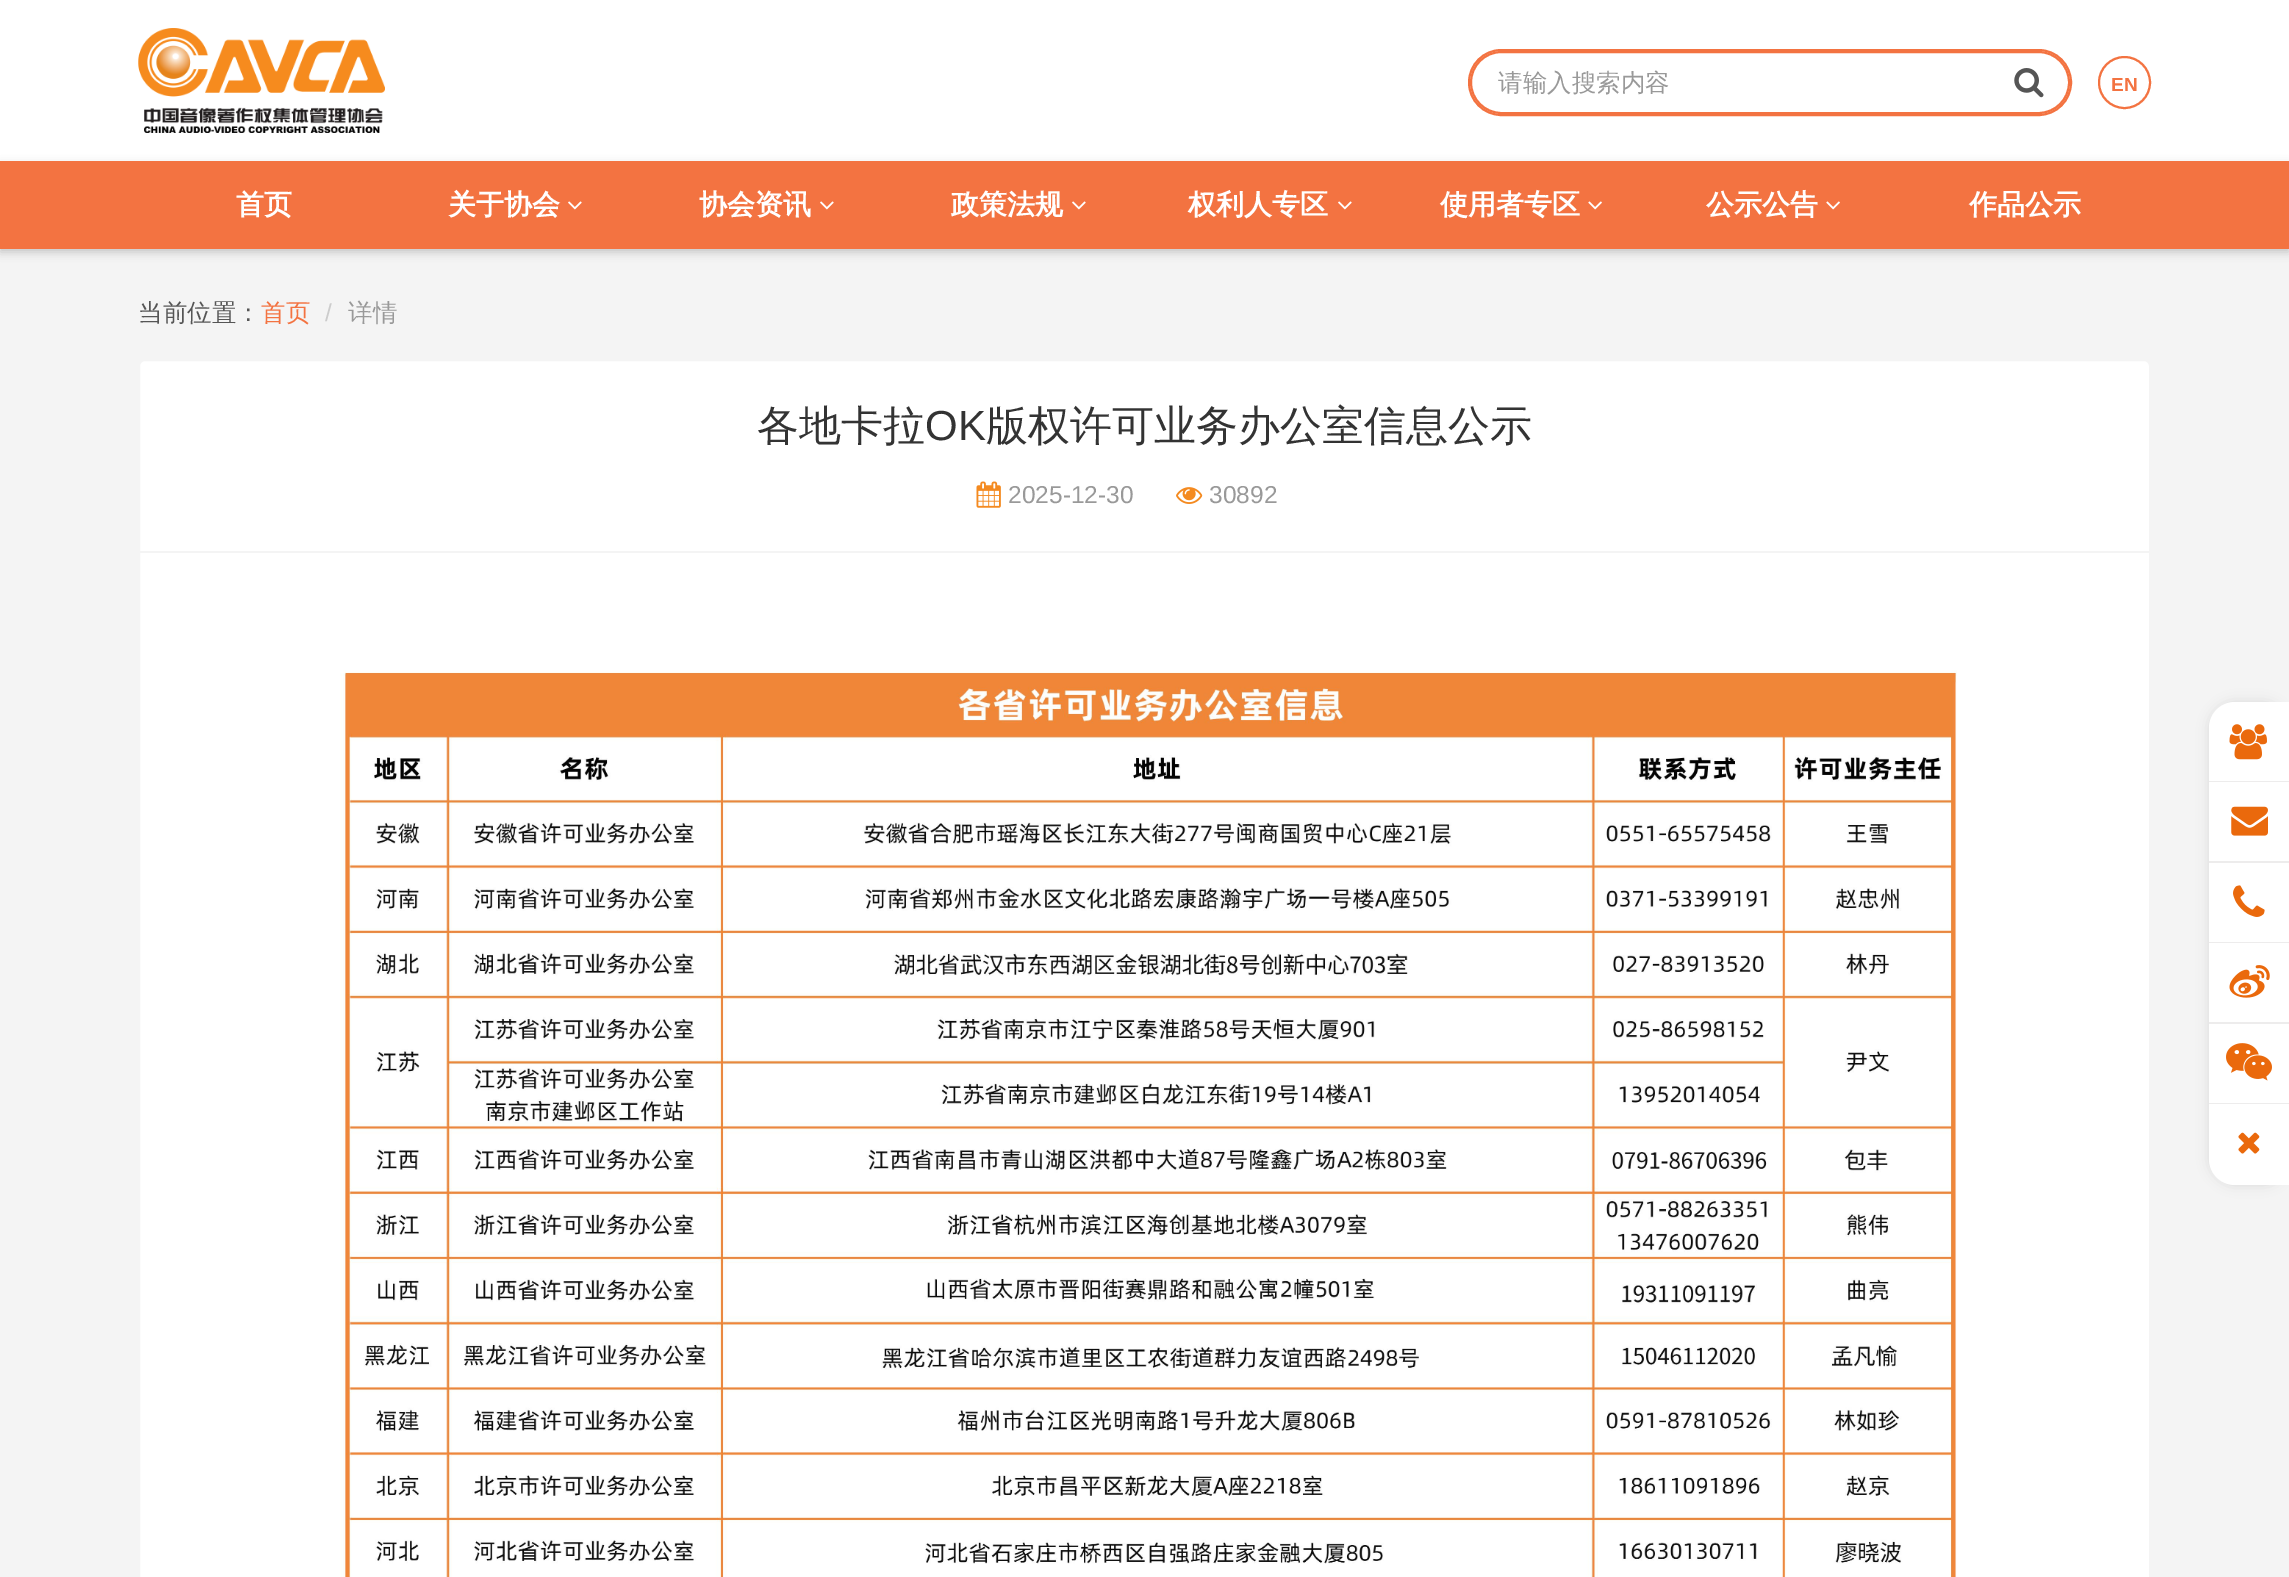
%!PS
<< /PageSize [2289 1577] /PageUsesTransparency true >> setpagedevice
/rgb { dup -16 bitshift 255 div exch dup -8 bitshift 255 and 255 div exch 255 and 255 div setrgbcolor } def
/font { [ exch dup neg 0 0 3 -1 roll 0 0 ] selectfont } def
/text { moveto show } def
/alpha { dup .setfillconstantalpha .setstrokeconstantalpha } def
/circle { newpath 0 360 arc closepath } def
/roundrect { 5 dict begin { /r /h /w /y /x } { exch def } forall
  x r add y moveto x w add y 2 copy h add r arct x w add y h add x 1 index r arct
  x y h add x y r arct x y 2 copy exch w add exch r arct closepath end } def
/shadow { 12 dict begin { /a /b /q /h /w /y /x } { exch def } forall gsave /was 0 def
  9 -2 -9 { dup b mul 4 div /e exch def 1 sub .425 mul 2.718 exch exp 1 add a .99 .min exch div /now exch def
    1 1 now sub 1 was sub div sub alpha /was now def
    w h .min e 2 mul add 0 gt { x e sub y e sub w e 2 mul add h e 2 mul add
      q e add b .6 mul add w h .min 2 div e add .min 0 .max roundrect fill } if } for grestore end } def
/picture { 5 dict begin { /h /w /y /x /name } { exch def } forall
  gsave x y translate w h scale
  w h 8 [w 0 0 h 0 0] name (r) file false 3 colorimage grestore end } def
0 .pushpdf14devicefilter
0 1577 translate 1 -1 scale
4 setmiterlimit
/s1 { /WenQuanYiZenHei-Medium 24.5 font 16#999999 rgb } def
/s2 { /LiberationSans-Bold 19 font 16#F37341 rgb } def
/s3 { /WenQuanYiZenHei-Bold 28 font 16#FFFFFF rgb } def
/s4 { /WenQuanYiZenHei-Medium 24.5 font 16#555555 rgb } def
/s5 { /WenQuanYiZenHei-Medium 24.5 font 16#F37341 rgb } def
/s6 { /LiberationSans-Regular 24.5 font 16#CCCCCC rgb } def
/s7 { /WenQuanYiZenHei-Medium 42 font 16#333333 rgb } def
/s8 { /LiberationSans-Regular 42 font 16#333333 rgb } def
/s9 { /LiberationSans-Regular 24.5 font 16#999999 rgb } def
16#F4F4F4 rgb
0 0 2289 1577 rectfill
16#FFFFFF rgb
0 0 2289 161 rectfill
(pic1.raw) 138 28 247 105 picture
16#F37341 rgb
2 setlinewidth
1469 50 602 65 32.5 roundrect stroke
16#FFFFFF rgb
1471 52 598 61 30.5 roundrect gsave fill grestore
16#F37341 rgb
stroke
s1
(请输入搜索内容) 1498 91 text
(pic2.raw) 2014 68 30 30 picture
16#F37341 rgb
2124.5 82.5 25.5 circle stroke
s2
(EN) 2111 91 text
16#000000 rgb
0 165 2289 87 0 4.5 0.2 shadow
16#F37341 rgb
0 161 2289 88 rectfill
s3
(首页) 236 214 text
(关于协会) 448 214 text
(pic3.raw) 568 201 14 9 picture
(协会资讯) 699 214 text
(pic3.raw) 820 201 14 9 picture
(政策法规) 951 214 text
(pic3.raw) 1072 201 14 9 picture
(权利人专区) 1188 214 text
(pic3.raw) 1338 201 14 9 picture
(使用者专区) 1440 214 text
(pic4.raw) 1588 201 14 9 picture
(公示公告) 1706 214 text
(pic4.raw) 1826 201 14 9 picture
(作品公示) 1969 214 text
s4
(当前位置：) 138 321 text
s5
(首页) 261 321 text
s6
(/) 325 321 text
s1
(详情) 348 321 text
16#FFFFFF rgb
139 360 2011 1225 6 roundrect gsave fill grestore
16#F4F4F4 rgb
stroke
140 551 2009 2 rectfill
s7
(各地卡拉) 757 440 text
s8
(OK) 925 440 text
s7
(版权许可业务办公室信息公示) 986 440 text
(pic5.raw) 976 481 25 27 picture
s9
(2025-12-30) 1008 503 text
(pic6.raw) 1176 487 27 17 picture
(30892) 1209 503 text
(pic7.raw) 340 670 1617 907 picture
16#000000 rgb
2209 702 80 483 26 6 0.1 shadow
16#FFFFFF rgb
2235 702 moveto 2289 702 lineto 2289 782 lineto 2209 782 lineto 2209 728 lineto 2209 713.5 2220.5 702 2235 702 curveto closepath fill
16#EDECEC rgb
2209 781 80 1 rectfill
(pic8.raw) 2229 724 38 36 picture
16#FFFFFF rgb
2209 782 80 79 rectfill
16#EDECEC rgb
2209 861 80 2 rectfill
(pic9.raw) 2231 806 37 30 picture
16#FFFFFF rgb
2209 863 80 79 rectfill
16#EDECEC rgb
2209 942 80 1 rectfill
(pic10.raw) 2233 885 32 32 picture
16#FFFFFF rgb
2209 943 80 79 rectfill
16#EDECEC rgb
2209 1022 80 2 rectfill
(pic11.raw) 2229 965 41 33 picture
16#FFFFFF rgb
2209 1024 80 79 rectfill
16#EDECEC rgb
2209 1103 80 1 rectfill
(pic12.raw) 2226 1043 46 38 picture
16#FFFFFF rgb
2209 1104 moveto 2289 1104 lineto 2289 1185 lineto 2235 1185 lineto 2220.5 1185 2209 1173.5 2209 1159 curveto closepath fill
(pic13.raw) 2238 1132 22 22 picture
.poppdf14devicefilter showpage
